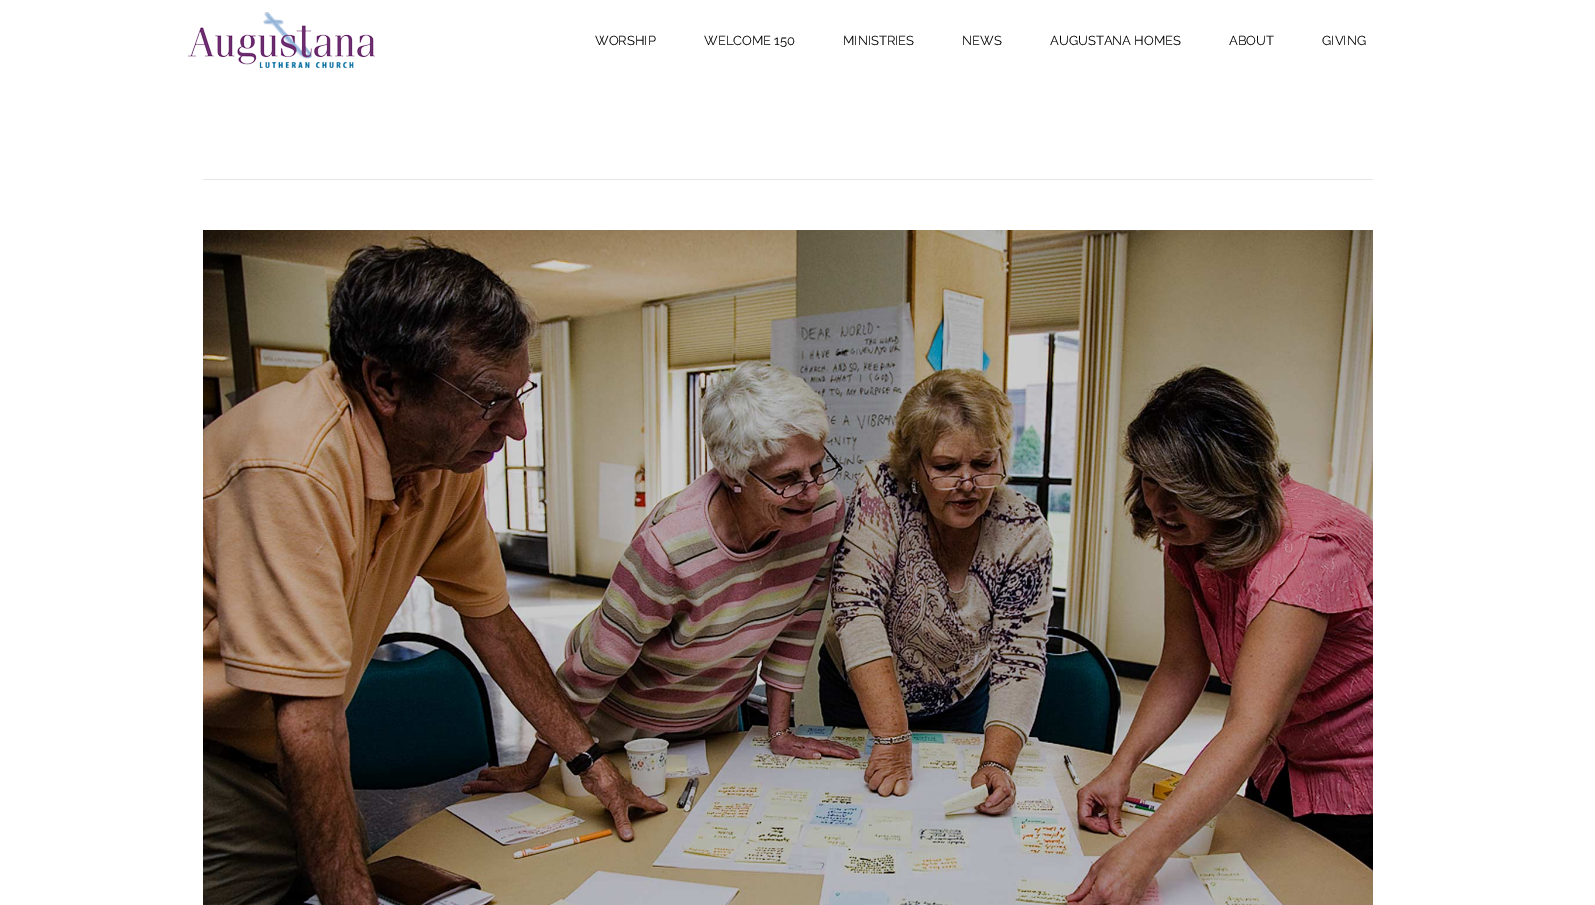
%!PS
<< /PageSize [1595 905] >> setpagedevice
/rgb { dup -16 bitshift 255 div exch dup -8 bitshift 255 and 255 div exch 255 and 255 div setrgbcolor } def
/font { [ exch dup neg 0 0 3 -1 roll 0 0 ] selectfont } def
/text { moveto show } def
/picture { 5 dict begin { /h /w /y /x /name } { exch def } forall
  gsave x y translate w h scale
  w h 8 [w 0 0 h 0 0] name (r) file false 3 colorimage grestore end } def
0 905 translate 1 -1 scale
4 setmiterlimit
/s1 { /Raleway-Regular 13 font 16#000000 rgb } def
16#FFFFFF rgb
0 0 1595 905 rectfill
(pic1.raw) 188 12 187 56 picture
s1
(WORSHIP) 595 45 text
(WELCOME 150) 704 45 text
(MINISTRIES) 843 45 text
(NEWS) 962 45 text
(AUGUSTANA HOMES) 1050 45 text
(ABOUT) 1229 45 text
(GIVING) 1322 45 text
16#E6E6E6 rgb
203 179 1170 1 rectfill
(pic2.raw) 203 230 1170 675 picture
showpage
